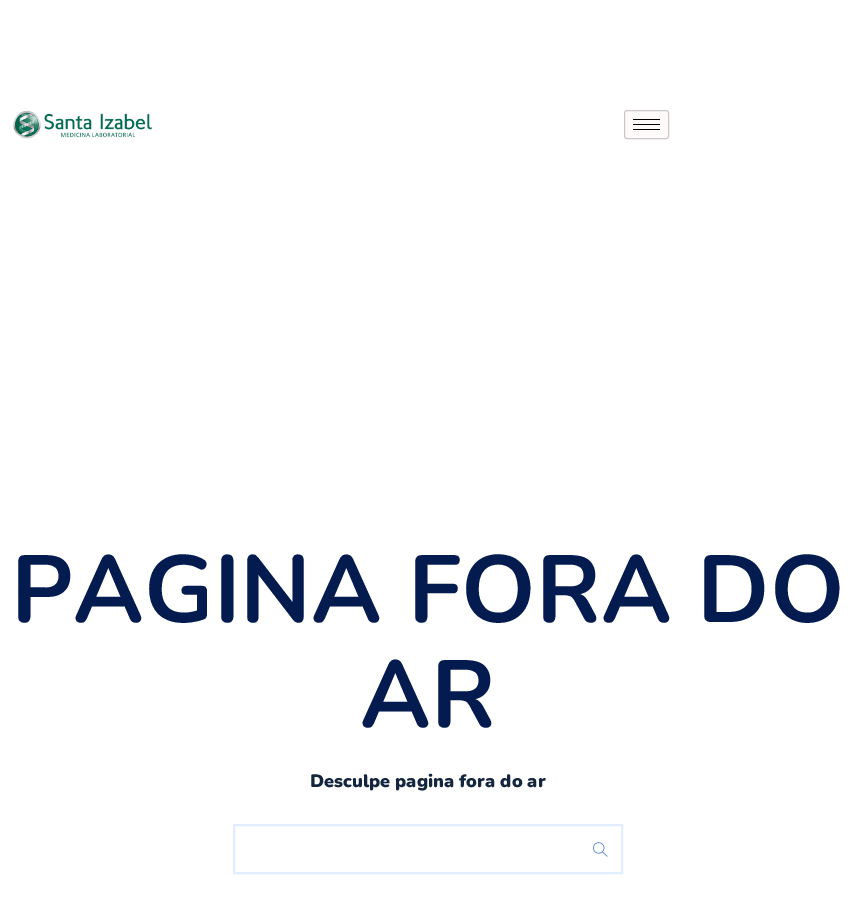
%!PS
<< /PageSize [855 918] >> setpagedevice
/rgb { dup -16 bitshift 255 div exch dup -8 bitshift 255 and 255 div exch 255 and 255 div setrgbcolor } def
/font { [ exch dup neg 0 0 3 -1 roll 0 0 ] selectfont } def
/text { moveto show } def
/roundrect { 5 dict begin { /r /h /w /y /x } { exch def } forall
  x r add y moveto x w add y 2 copy h add r arct x w add y h add x 1 index r arct
  x y h add x y r arct x y 2 copy exch w add exch r arct closepath end } def
/picture { 5 dict begin { /h /w /y /x /name } { exch def } forall
  gsave x y translate w h scale
  w h 8 [w 0 0 h 0 0] name (r) file false 3 colorimage grestore end } def
0 918 translate 1 -1 scale
4 setmiterlimit
/s1 { /Nunito-Bold 95 font 16#031B4E rgb } def
/s2 { /Nunito-Black 18 font 16#13263E rgb } def
16#FFFFFF rgb
0 0 855 918 rectfill
(pic1.raw) 13 110 139 29 picture
16#FFFAFA rgb
624.5 110.5 44 28 2.5 roundrect gsave fill grestore
16#CCC8C8 rgb
stroke
16#000000 rgb
633 119 27 1 rectfill
633 124 27 1 rectfill
633 129 27 1 rectfill
s1
(PAGINA FORA DO) 11 622 text
(AR) 360 727 text
s2
(Desculpe pagina fora do ar) 310 787 text
16#E1EEFF rgb
2 setlinewidth
234 825 388 48 rectstroke
(pic2.raw) 593 842 15 15 picture
showpage
